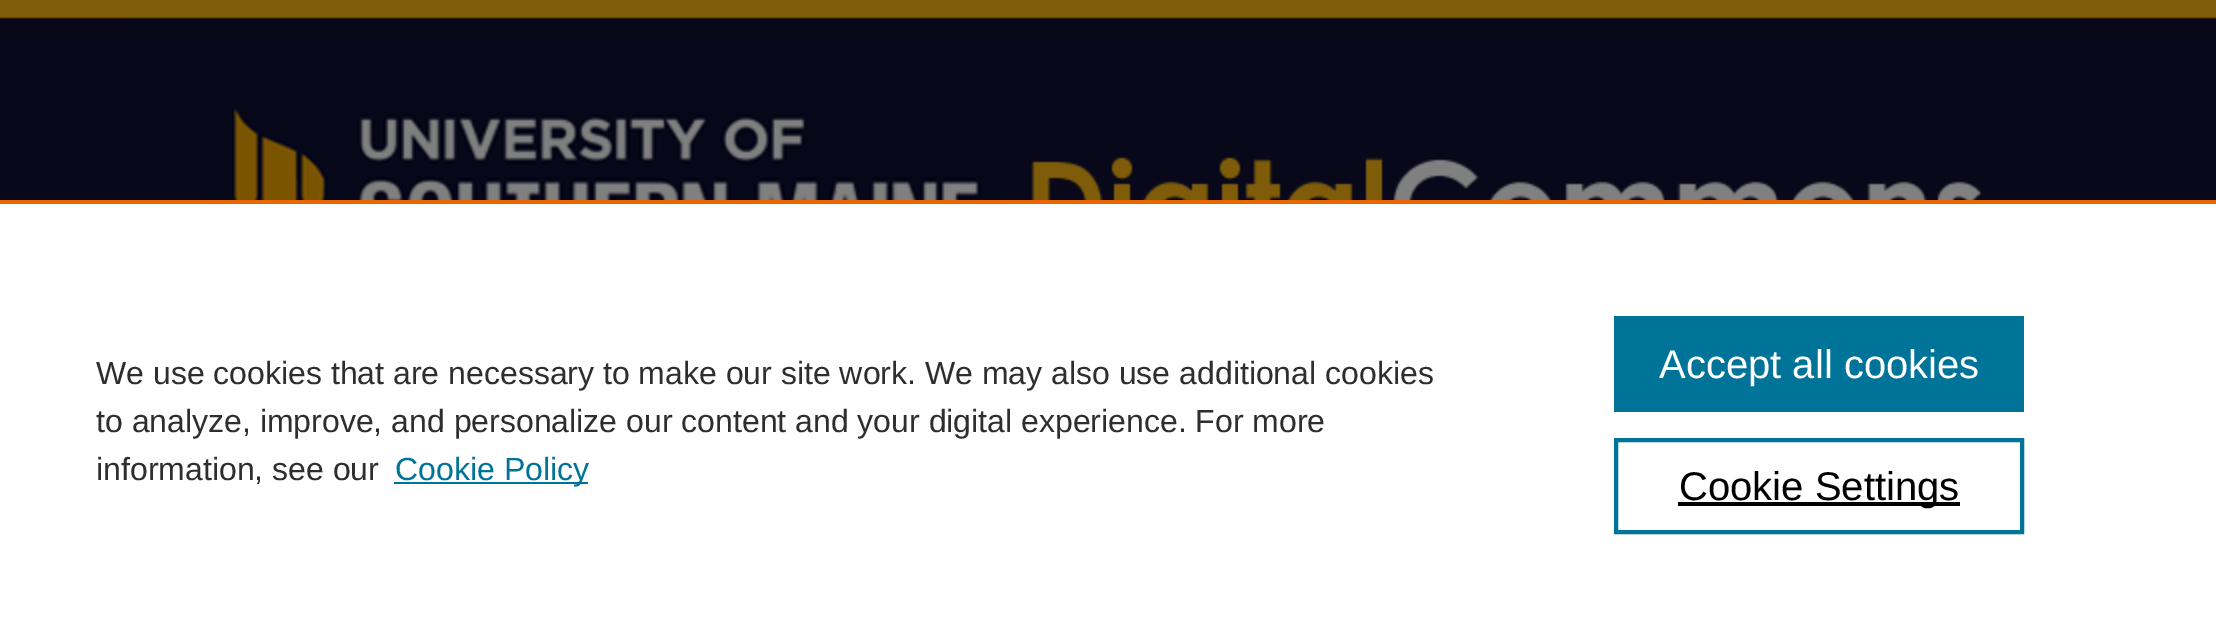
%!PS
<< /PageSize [2216 640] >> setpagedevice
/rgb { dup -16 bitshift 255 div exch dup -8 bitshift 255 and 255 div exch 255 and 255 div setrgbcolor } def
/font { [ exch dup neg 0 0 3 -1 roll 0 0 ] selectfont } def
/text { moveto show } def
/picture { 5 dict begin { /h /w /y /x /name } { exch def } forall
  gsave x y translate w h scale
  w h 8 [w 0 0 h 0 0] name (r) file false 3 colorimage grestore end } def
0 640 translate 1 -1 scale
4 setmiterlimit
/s1 { /LiberationSans-Regular 32 font 16#2E2E2E rgb } def
/s2 { /LiberationSans-Regular 32 font 16#007398 rgb } def
/s3 { /LiberationSans-Regular 40 font 16#FFFFFF rgb } def
/s4 { /LiberationSans-Regular 40 font 16#000000 rgb } def
16#FFFFFF rgb
0 0 2216 640 rectfill
(pic1.raw) 0 0 2216 200 picture
(pic2.raw) 128 0 1960 200 picture
16#EB6500 rgb
0 200 2216 4 rectfill
s1
(We use cookies that are necessary to make our site work. We may also use additional cookies) 96 384 text
(to analyze, improve, and personalize our content and your digital experience. For more) 96 432 text
(information, see our) 96 480 text
16#007398 rgb
394 482 194 2 rectfill
(Cookie Policy) 395 480 text
1614 316 410 96 rectfill
s3
(Accept all cookies) 1659 378 text
16#007398 rgb
4 setlinewidth
1616 440 406 92 rectstroke
16#000000 rgb
1678 502 282 4 rectfill
(Cookie Settings) 1679 500 text
showpage
